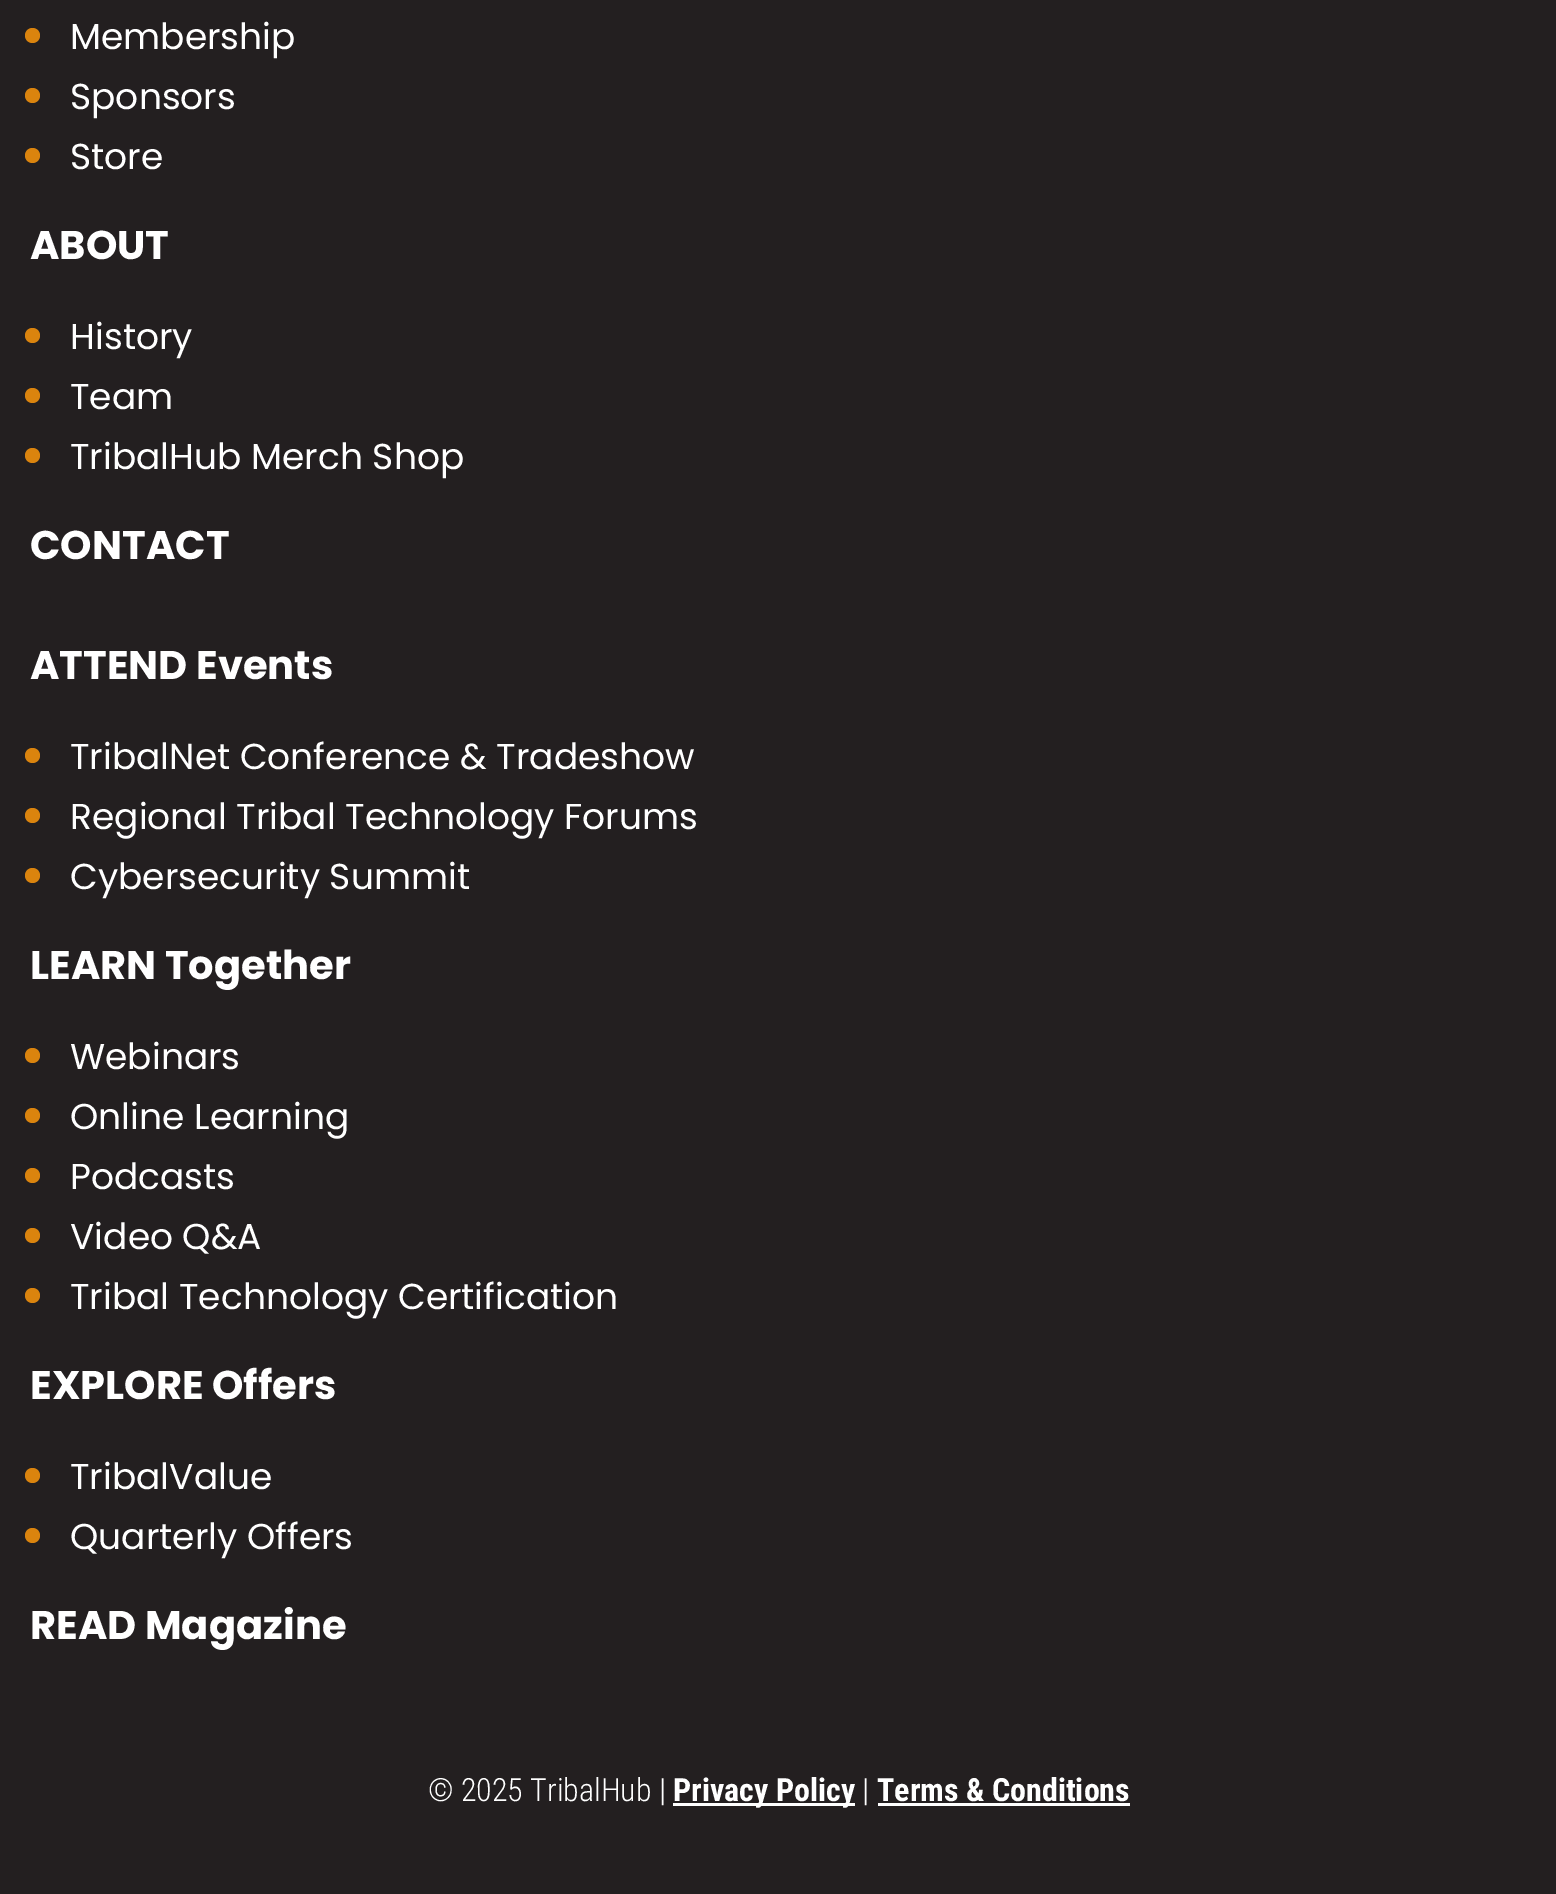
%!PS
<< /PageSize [1556 1894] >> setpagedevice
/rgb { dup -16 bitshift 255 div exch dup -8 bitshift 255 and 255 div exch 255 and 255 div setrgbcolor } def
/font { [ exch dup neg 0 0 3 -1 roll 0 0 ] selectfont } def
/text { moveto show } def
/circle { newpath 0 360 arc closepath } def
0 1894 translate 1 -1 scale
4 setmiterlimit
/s1 { /Poppins-Regular 36 font 16#FFFFFF rgb } def
/s2 { /Poppins-Bold 40 font 16#FFFFFF rgb } def
/s3 { /RobotoCondensed-Light 32 font 16#FFFFFF rgb } def
/s4 { /RobotoCondensed-Bold 32 font 16#FFFFFF rgb } def
16#231F20 rgb
0 0 1556 1894 rectfill
16#DB840E rgb
32.5 35.5 7.5 circle fill
s1
(Membership) 70 49 text
16#DB840E rgb
32.5 95.5 7.5 circle fill
s1
(Sponsors) 70 109 text
16#DB840E rgb
32.5 155.5 7.5 circle fill
s1
(Store) 70 169 text
s2
(ABOUT) 30 259 text
16#DB840E rgb
32.5 335.5 7.5 circle fill
s1
(History) 70 349 text
16#DB840E rgb
32.5 395.5 7.5 circle fill
s1
(Team) 70 409 text
16#DB840E rgb
32.5 455.5 7.5 circle fill
s1
(TribalHub Merch Shop) 70 469 text
s2
(CONTACT) 30 559 text
(ATTEND Events) 30 679 text
16#DB840E rgb
32.5 755.5 7.5 circle fill
s1
(TribalNet Conference & Tradeshow) 70 769 text
16#DB840E rgb
32.5 815.5 7.5 circle fill
s1
(Regional Tribal Technology Forums) 70 829 text
16#DB840E rgb
32.5 875.5 7.5 circle fill
s1
(Cybersecurity Summit) 70 889 text
s2
(LEARN Together) 30 979 text
16#DB840E rgb
32.5 1055.5 7.5 circle fill
s1
(Webinars) 70 1069 text
16#DB840E rgb
32.5 1115.5 7.5 circle fill
s1
(Online Learning) 70 1129 text
16#DB840E rgb
32.5 1175.5 7.5 circle fill
s1
(Podcasts) 70 1189 text
16#DB840E rgb
32.5 1235.5 7.5 circle fill
s1
(Video Q&A) 70 1249 text
16#DB840E rgb
32.5 1295.5 7.5 circle fill
s1
(Tribal Technology Certification) 70 1309 text
s2
(EXPLORE Offers) 30 1399 text
16#DB840E rgb
32.5 1475.5 7.5 circle fill
s1
(TribalValue) 70 1489 text
16#DB840E rgb
32.5 1535.5 7.5 circle fill
s1
(Quarterly Offers) 70 1549 text
s2
(READ Magazine) 30 1639 text
s3
(© 2025 TribalHub |) 428 1801 text
673 1803 182 3 rectfill
s4
(Privacy Policy) 673 1801 text
s3
(|) 862 1801 text
s4
(Terms & Conditions) 877 1801 text
878 1803 252 3 rectfill
showpage
